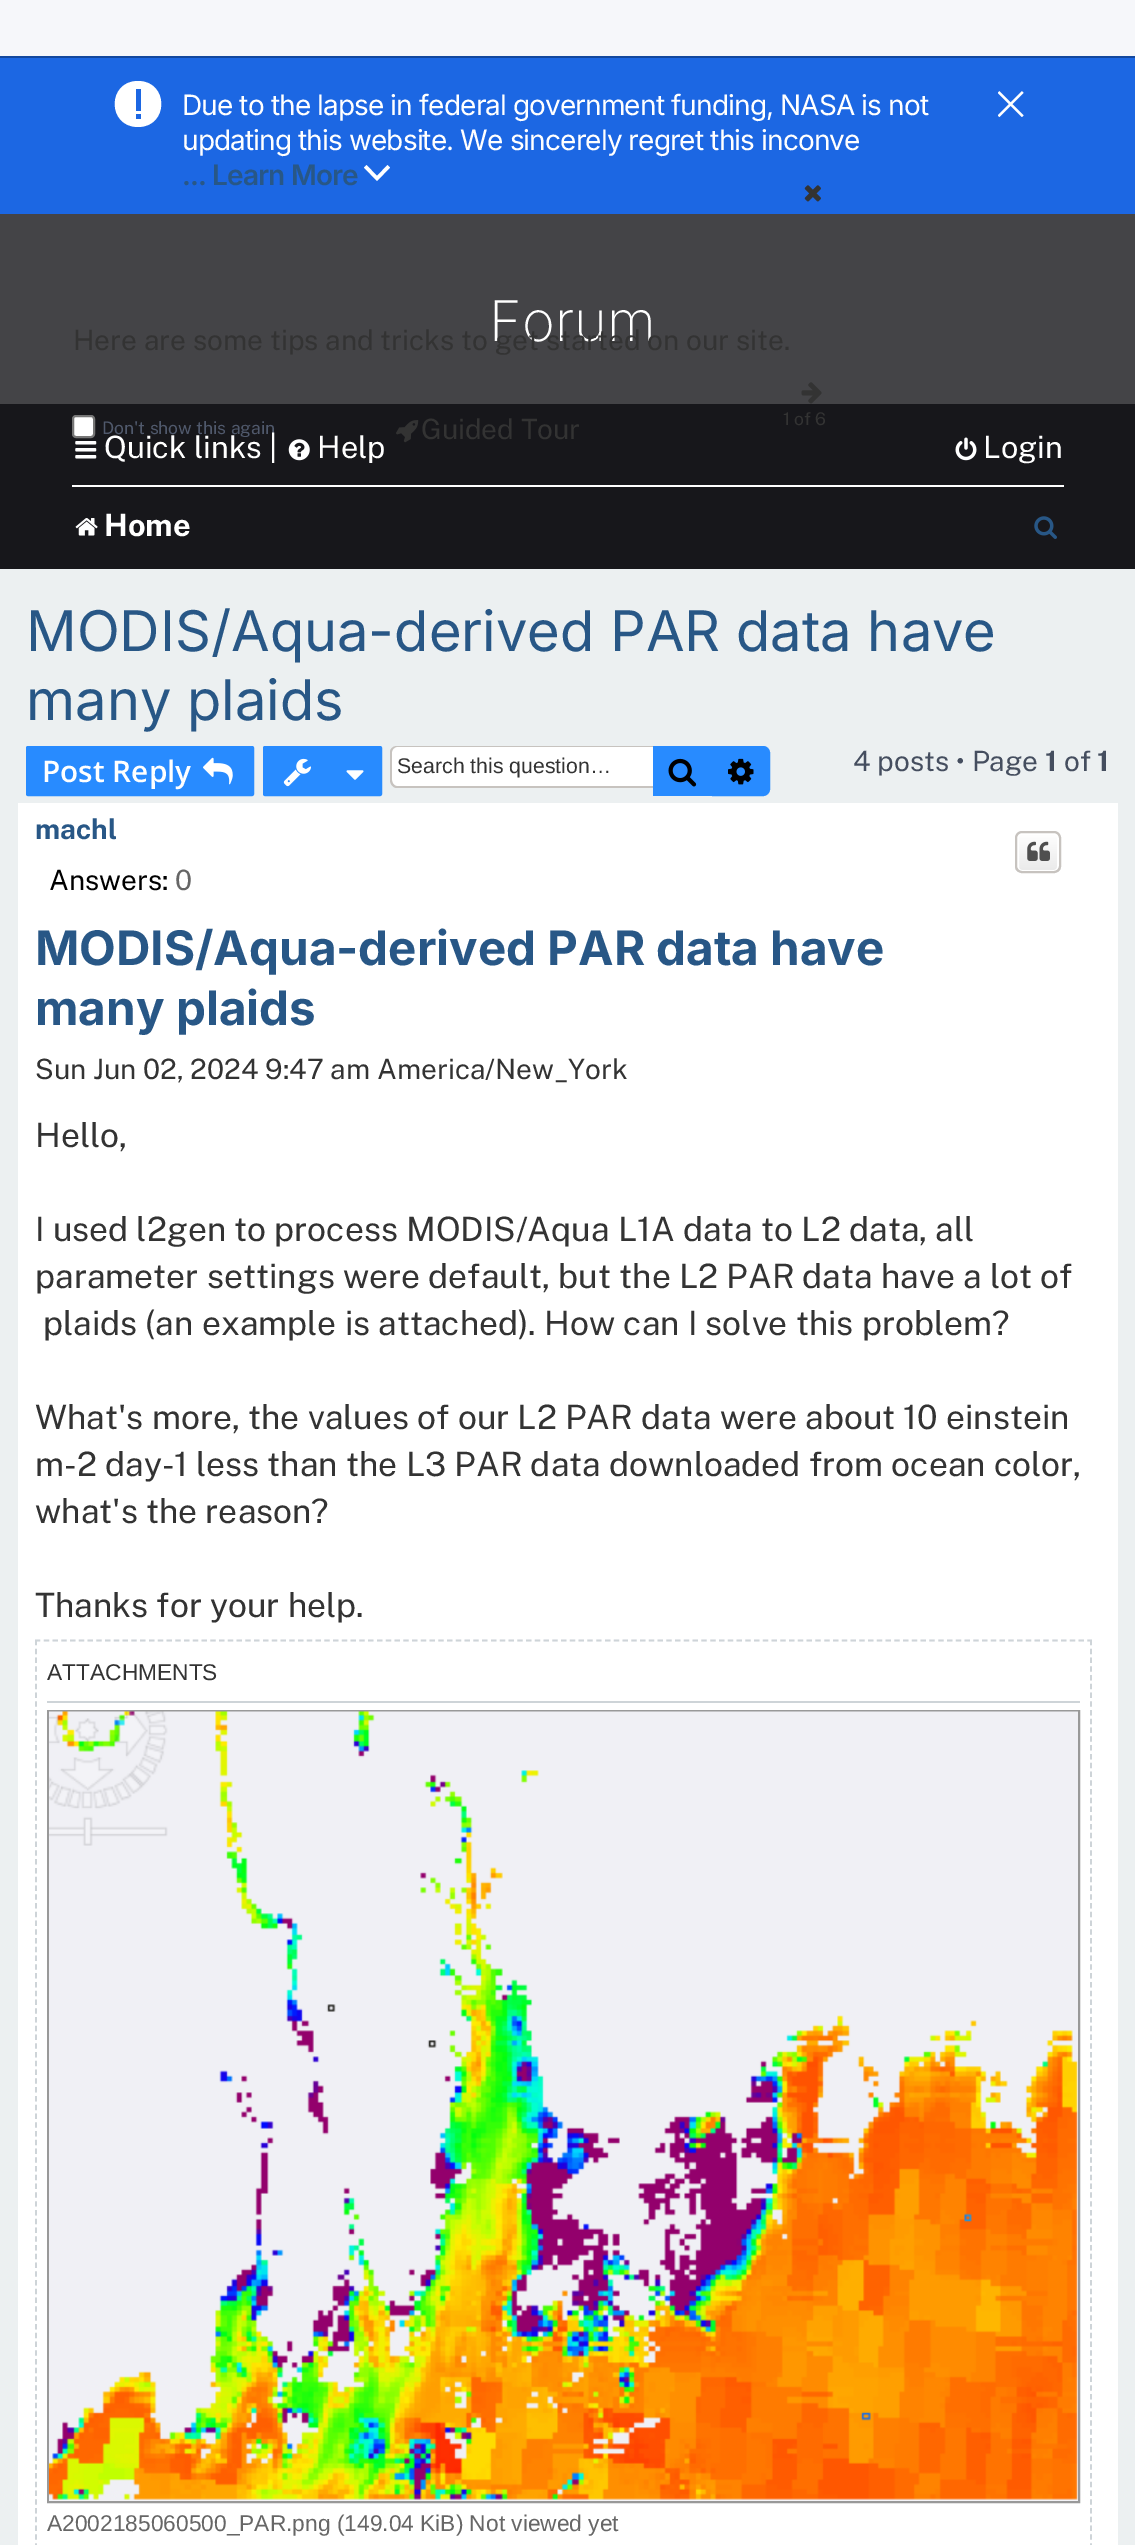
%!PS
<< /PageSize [1135 2545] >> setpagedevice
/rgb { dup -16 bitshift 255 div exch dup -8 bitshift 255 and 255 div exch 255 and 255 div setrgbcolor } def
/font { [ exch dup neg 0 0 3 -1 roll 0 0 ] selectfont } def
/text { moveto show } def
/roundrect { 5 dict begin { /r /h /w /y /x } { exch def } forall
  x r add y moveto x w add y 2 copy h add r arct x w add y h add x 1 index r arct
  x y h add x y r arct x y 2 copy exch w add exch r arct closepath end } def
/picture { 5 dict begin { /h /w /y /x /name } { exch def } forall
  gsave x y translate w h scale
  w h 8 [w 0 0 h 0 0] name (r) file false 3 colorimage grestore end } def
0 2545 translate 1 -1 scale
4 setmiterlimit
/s1 { /Inter-ExtraLight 56 font 16#FFFFFF rgb } def
/s2 { /PublicSans-Regular 28 font 16#333333 rgb } def
/s3 { /PublicSans-Regular 17.5 font 16#333333 rgb } def
/s4 { /PublicSans-Regular 17.5 font 16#50596C rgb } def
/s5 { /PublicSans-Regular 30.75 font 16#FFFFFF rgb } def
/s6 { /PublicSans-Bold 30.75 font 16#FFFFFF rgb } def
/s7 { /Inter-Regular 56 font 16#285786 rgb } def
/s8 { /OpenSans-SemiBold 29.75 font 16#FFFFFF rgb } def
/s9 { /LiberationSans-Regular 21.25 font 16#333333 rgb } def
/s10 { /PublicSans-Regular 28 font 16#454E5F rgb } def
/s11 { /PublicSans-Bold 28 font 16#454E5F rgb } def
/s12 { /PublicSans-Bold 28 font 16#285786 rgb } def
/s13 { /PublicSans-Regular 28 font 16#000000 rgb } def
/s14 { /PublicSans-Regular 28 font 16#666666 rgb } def
/s15 { /Inter-Bold 47.6 font 16#285786 rgb } def
/s16 { /PublicSans-Regular 33.6 font 16#333333 rgb } def
/s17 { /LiberationSans-Regular 22.75 font 16#333333 rgb } def
/s18 { /LiberationSans-Regular 22.75 font 16#666666 rgb } def
16#F6F7FA rgb
0 0 1135 2545 rectfill
16#1C67E3 rgb
0 58 1135 156 rectfill
16#13489E rgb
0 56 1135 2 rectfill
16#FFFFFF rgb
138 127 moveto 169 127 169 81 138 81 curveto 107 81 107 127 138 127 curveto closepath 136 111 moveto 136 89 lineto 141 89 lineto 141 111 lineto closepath 136 119 moveto 136 114 lineto 141 114 lineto 141 119 lineto closepath eofill
/Inter-Regular 28 font
182 115 moveto -0.88 0 (Due to the lapse in federal government funding, NASA is not) ashow
182 150 moveto -0.88 0 (updating this website. We sincerely regret this inconve) ashow
/Inter-SemiBold 28 font
16#285786 rgb
182 185 moveto -0.88 0 (... Learn More) ashow
16#FFFFFF rgb
377 176 moveto 387.5 165 lineto 390 167.5 lineto 377 181 lineto 364 167.5 lineto 366.5 165 lineto closepath eofill
(pic1.raw) 998 91 26 26 picture
16#ECF0F1 rgb
0 569 1135 1976 rectfill
16#444447 rgb
0 214 1135 190 rectfill
s1
(Forum) 489 341 text
16#17171B rgb
0 404 1135 165 rectfill
(pic2.raw) 804 185 17 17 picture
s2
(Here are some tips and tricks to get started on our site.) 73 350 text
(pic3.raw) 801 382 21 22 picture
s3
(1 of 6) 783 425 text
16#FFFFFF rgb
73 416 21 21 3 roundrect gsave fill grestore
16#767676 rgb
2 setlinewidth
stroke
s4
(Don't show this again) 102 434 text
(pic4.raw) 396 420 23 23 picture
s2
(Guided Tour) 421 439 text
(pic5.raw) 75 441 22 18 picture
s5
(Quick links |) 104 458 text
(pic6.raw) 288 439 22 22 picture
(Help) 317 458 text
(pic7.raw) 955 437 22 24 picture
(Login) 983 458 text
72 485 992 2 rectfill
(pic8.raw) 75 518 23 18 picture
s6
(Home) 104 536 text
(pic9.raw) 1034 516 23 23 picture
s7
(MODIS/Aqua-derived PAR data have) 26 651 text
(many plaids) 26 720 text
16#288BFF rgb
27 747 226 48 1 roundrect gsave fill grestore
stroke
s8
(Post Reply) 42 782 text
(pic10.raw) 203 757 30 28 picture
16#288BFF rgb
264 747 117 48 1 roundrect gsave fill grestore
stroke
(pic11.raw) 283 758 28 29 picture
(pic12.raw) 346 770 18 10 picture
16#FFFFFF rgb
397 747 moveto 653 747 lineto 653 786 lineto 397 786 lineto 394 786 392 784 392 781 curveto 392 752 lineto 392 749 394 747 397 747 curveto closepath fill
16#C7C3BF rgb
397 746 moveto 653 746 lineto 653 788 lineto 397 788 lineto 393 788 390 784 390 780 curveto 390 752 lineto 390 749 393 746 397 746 curveto closepath 397 747 moveto 653 747 lineto 653 786 lineto 397 786 lineto 394 786 392 783 392 780 curveto 392 752 lineto 392 750 394 747 397 747 curveto closepath eofill
s9
(Search this question…) 397 773 text
16#288BFF rgb
653 746 59 50 rectfill
(pic13.raw) 668 758 29 29 picture
713 747 moveto 763 747 lineto 766.5 747 769 749.5 769 753 curveto 769 789 lineto 769 792.5 766.5 795 763 795 curveto 713 795 lineto closepath gsave fill grestore
stroke
(pic14.raw) 728 758 26 27 picture
s10
(4 posts • Page) 853 771 text
s11
(1) 1045 771 text
s10
(of) 1064 771 text
s11
(1) 1097 771 text
16#FFFFFF rgb
18 803 1100 1742 rectfill
s12
(machl) 35 839 text
s13
(Answers:) 49 890 text
s14
(0) 175 890 text
gsave
1015 831 46 42 7 roundrect clip newpath
gsave 1015 833 moveto 1061 833 lineto 1061 872 lineto 1015 872 lineto closepath clip newpath
<< /ShadingType 2 /ColorSpace /DeviceRGB /Coords [1038 833 1038 872] /Extend [true true] /Function << /FunctionType 2 /Domain [0 1] /C0 [1 1 1] /C1 [0.914 0.914 0.914] /N 1 >> >> shfill grestore
grestore
16#FFFFFF rgb
1018 834 40 37 4 roundrect stroke
16#C7C3BF rgb
1016 832 44 40 6 roundrect stroke
(pic15.raw) 1027 841 23 20 picture
s15
(MODIS/Aqua-derived PAR data have) 35 965 text
(many plaids) 35 1025 text
s2
(Sun Jun 02, 2024 9:47 am America/New_York) 35 1079 text
s16
(Hello,) 35 1147 text
(I used l2gen to process MODIS/Aqua L1A data to L2 data, all) 35 1241 text
(parameter settings were default, but the L2 PAR data have a lot of) 35 1288 text
(plaids \(an example is attached\). How can I solve this problem?) 43 1335 text
(What's more, the values of our L2 PAR data were about 10 einstein) 35 1429 text
(m-2 day-1 less than the L3 PAR data downloaded from ocean color,) 35 1476 text
(what's the reason?) 35 1523 text
(Thanks for your help.) 35 1617 text
16#CED4D8 rgb
1.8 setlinewidth
[5.25 3.52] 0 setdash
35 1640.5 moveto 1092 1640.5 lineto stroke
1091 1640 moveto 1091 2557 lineto stroke
36 1640 moveto 36 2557 lineto stroke
s17
(ATTACHMENTS) 47 1680 text
16#CED4D8 rgb
47 1701 1033 2 rectfill
16#999999 rgb
2 setlinewidth
[] 0 setdash
48 1711 1031 791 rectstroke
(pic16.raw) 49 1711 1029 790 picture
s18
(A2002185060500_PAR.png \(149.04 KiB\) Not viewed yet) 47 2531 text
showpage
